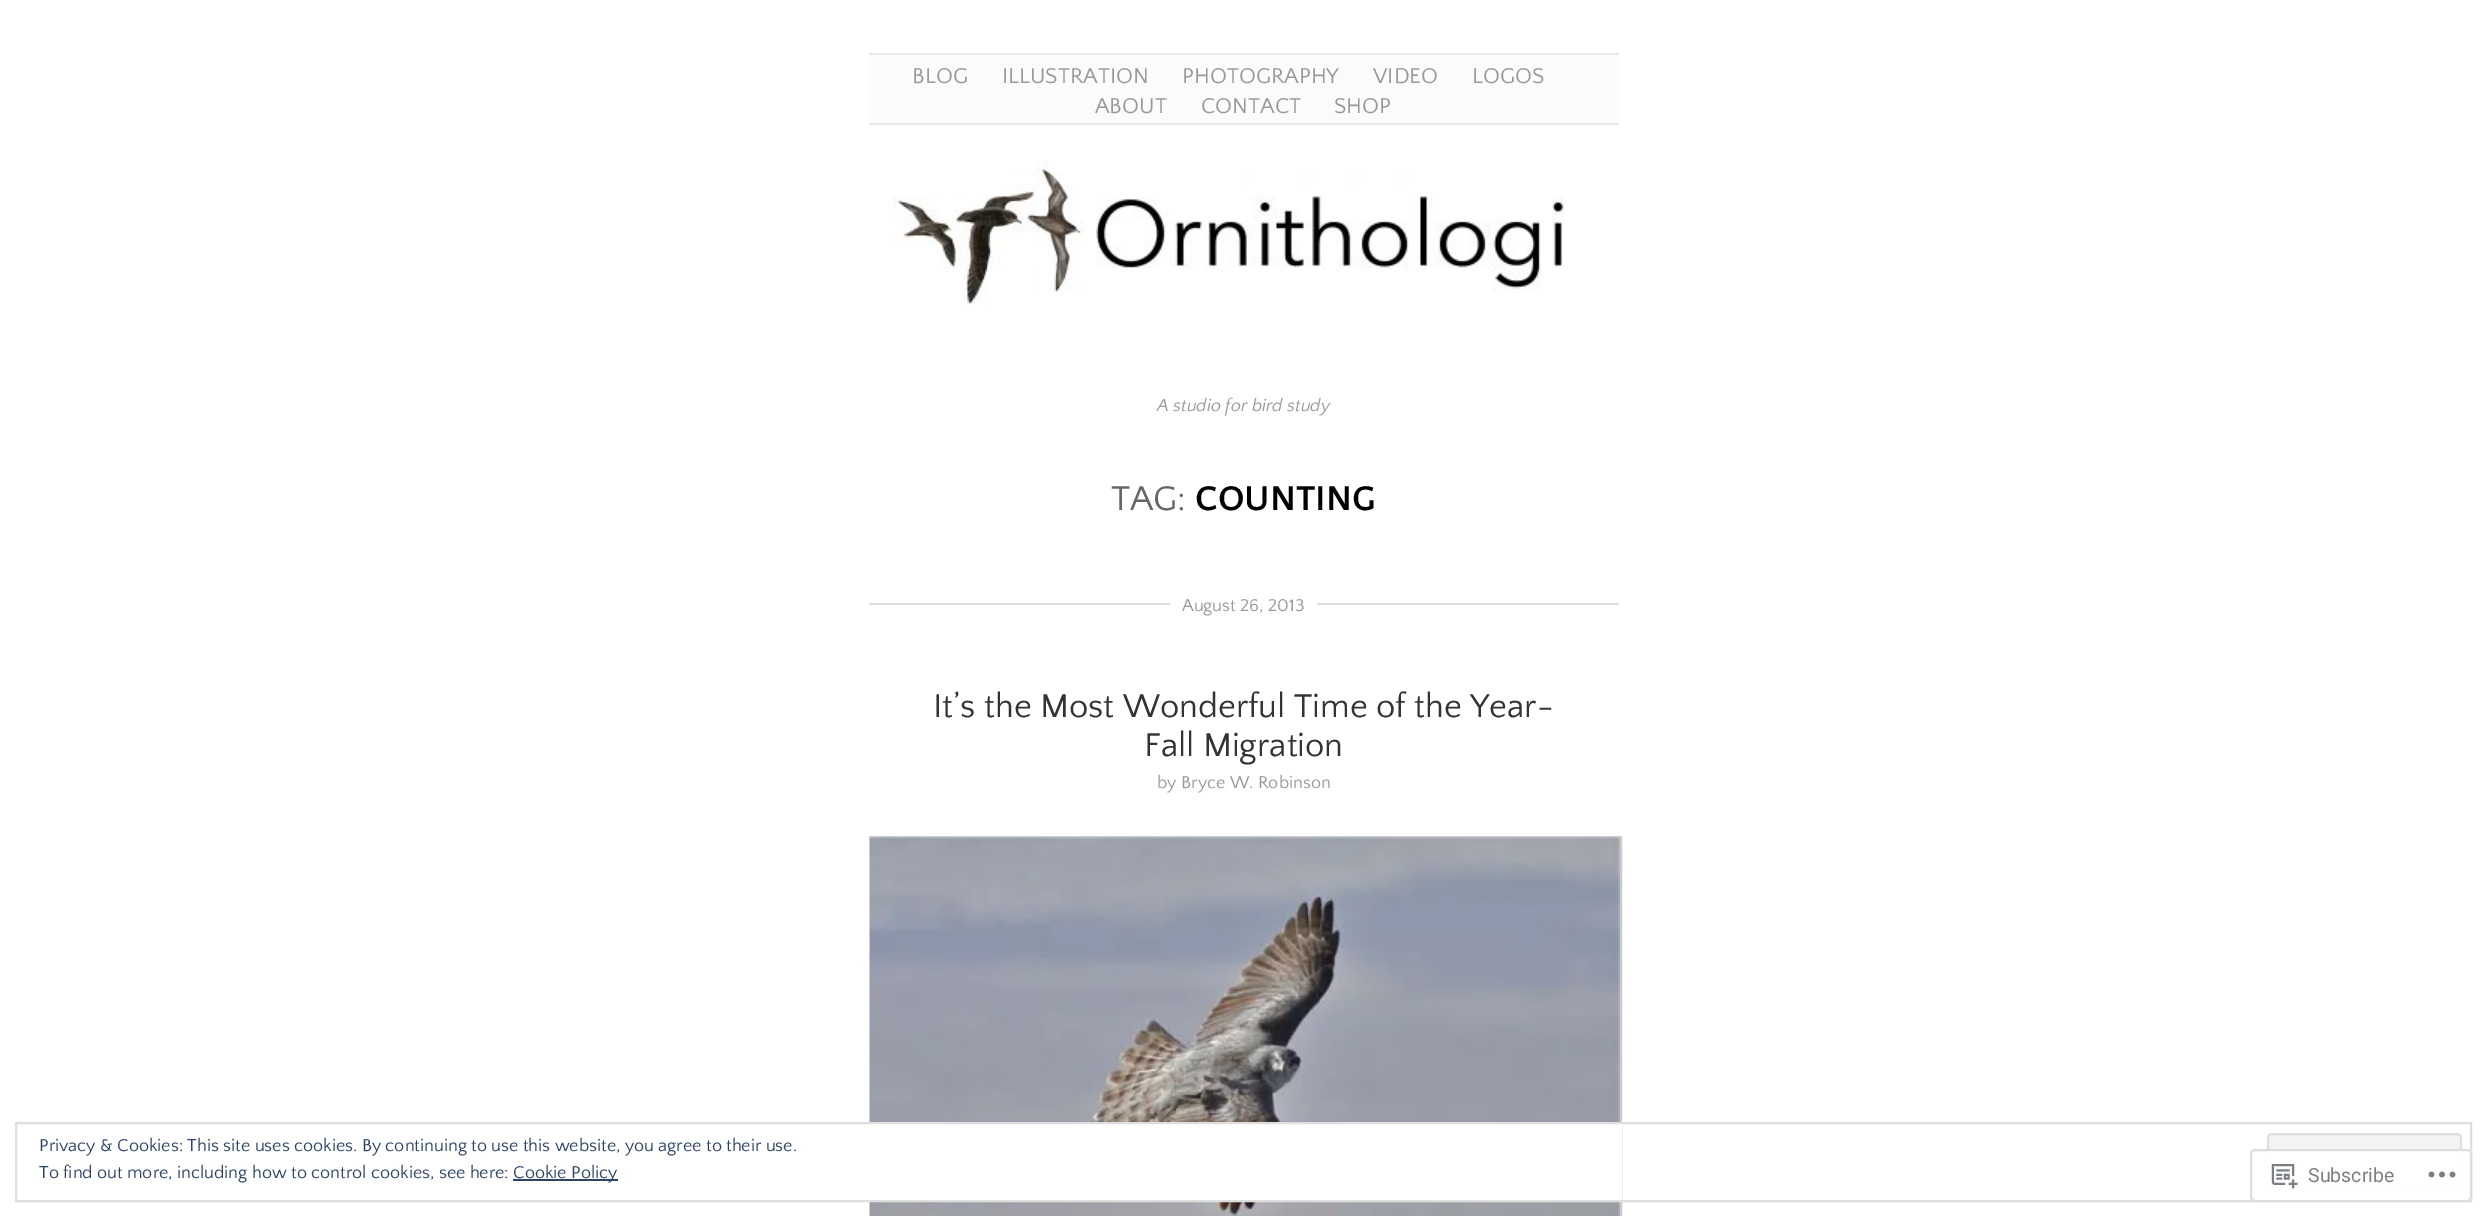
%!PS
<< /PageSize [2487 1216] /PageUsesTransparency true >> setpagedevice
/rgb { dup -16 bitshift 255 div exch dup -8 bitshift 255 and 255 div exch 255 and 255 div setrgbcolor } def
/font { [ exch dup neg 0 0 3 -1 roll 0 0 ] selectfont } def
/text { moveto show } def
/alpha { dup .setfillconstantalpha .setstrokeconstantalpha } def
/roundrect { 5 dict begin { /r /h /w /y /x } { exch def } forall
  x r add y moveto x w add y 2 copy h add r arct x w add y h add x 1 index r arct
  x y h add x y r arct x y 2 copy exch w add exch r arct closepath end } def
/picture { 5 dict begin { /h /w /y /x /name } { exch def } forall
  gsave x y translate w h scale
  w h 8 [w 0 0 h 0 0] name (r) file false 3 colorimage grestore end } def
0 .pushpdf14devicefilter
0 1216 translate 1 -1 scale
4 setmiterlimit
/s1 { /QuattrocentoSans-Regular 22.5 font 16#999999 rgb } def
/s2 { /QuattrocentoSans-Italic 18 font 16#999999 rgb } def
/s3 { /QuattrocentoSans-Regular 36 font 16#666666 rgb } def
/s4 { /QuattrocentoSans-Bold 36 font 16#000000 rgb } def
/s5 { /QuattrocentoSans-Regular 18 font 16#999999 rgb } def
/s6 { /QuattrocentoSans-Regular 34.5 font 16#333333 rgb } def
/s7 { /QuattrocentoSans-Regular 18 font 16#2E4467 rgb } def
/s8 { /Roboto-Regular 19.5 font 16#7B7F84 rgb } def
16#FFFFFF rgb
0 0 2487 1216 rectfill
16#FBFBFB rgb
869 55 750 68 rectfill
16#EAEAEA rgb
869 53 750 2 rectfill
869 123 750 2 rectfill
s1
(BLOG) 912 83 text
(ILLUSTRATION) 1002 83 text
(PHOTOGRAPHY) 1182 83 text
(VIDEO) 1373 83 text
(LOGOS) 1472 83 text
(ABOUT) 1095 113 text
(CONTACT) 1201 113 text
(SHOP) 1334 113 text
(pic1.raw) 892 160 673 145 picture
s2
(A studio for bird study) 1157 411 text
s3
(TAG:) 1111 510 text
s4
(COUNTING) 1195 510 text
16#DDDDDD rgb
869 603 750 2 rectfill
16#FFFFFF rgb
1170 603 147 2 rectfill
s5
(August 26, 2013) 1182 611 text
s6
(It’s the Most Wonderful Time of the Year-) 933 717 text
(Fall Migration) 1144 756 text
s5
(by Bryce W. Robinson) 1157 788 text
16#CCCCCC rgb
2 setlinewidth
870 837 751 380 rectstroke
(pic2.raw) 870 837 750 379 picture
16#FFFFFF rgb
869 1124 753 76 rectfill
16#DEDEDE rgb
16 1123 2455 78 rectstroke
s7
(Privacy & Cookies: This site uses cookies. By continuing to use this website, you agree to their use.) 39 1151 text
16#F3F3F3 rgb
2268 1134 193 56 4 roundrect gsave fill grestore
16#DEDEDE rgb
stroke
s7
(To find out more, including how to control cookies, see here:) 39 1178 text
513 1179 105 2 rectfill
(Cookie Policy) 513 1178 text
0.98 alpha
16#FFFFFF rgb
2250 1149 222 53 5 roundrect fill
16#DCDCDE rgb
2251 1150 220 51 4 roundrect stroke
1 alpha
(pic3.raw) 2271 1164 27 25 picture
s8
(Subscribe) 2308 1182 text
(pic4.raw) 2428 1171 28 7 picture
.poppdf14devicefilter showpage
